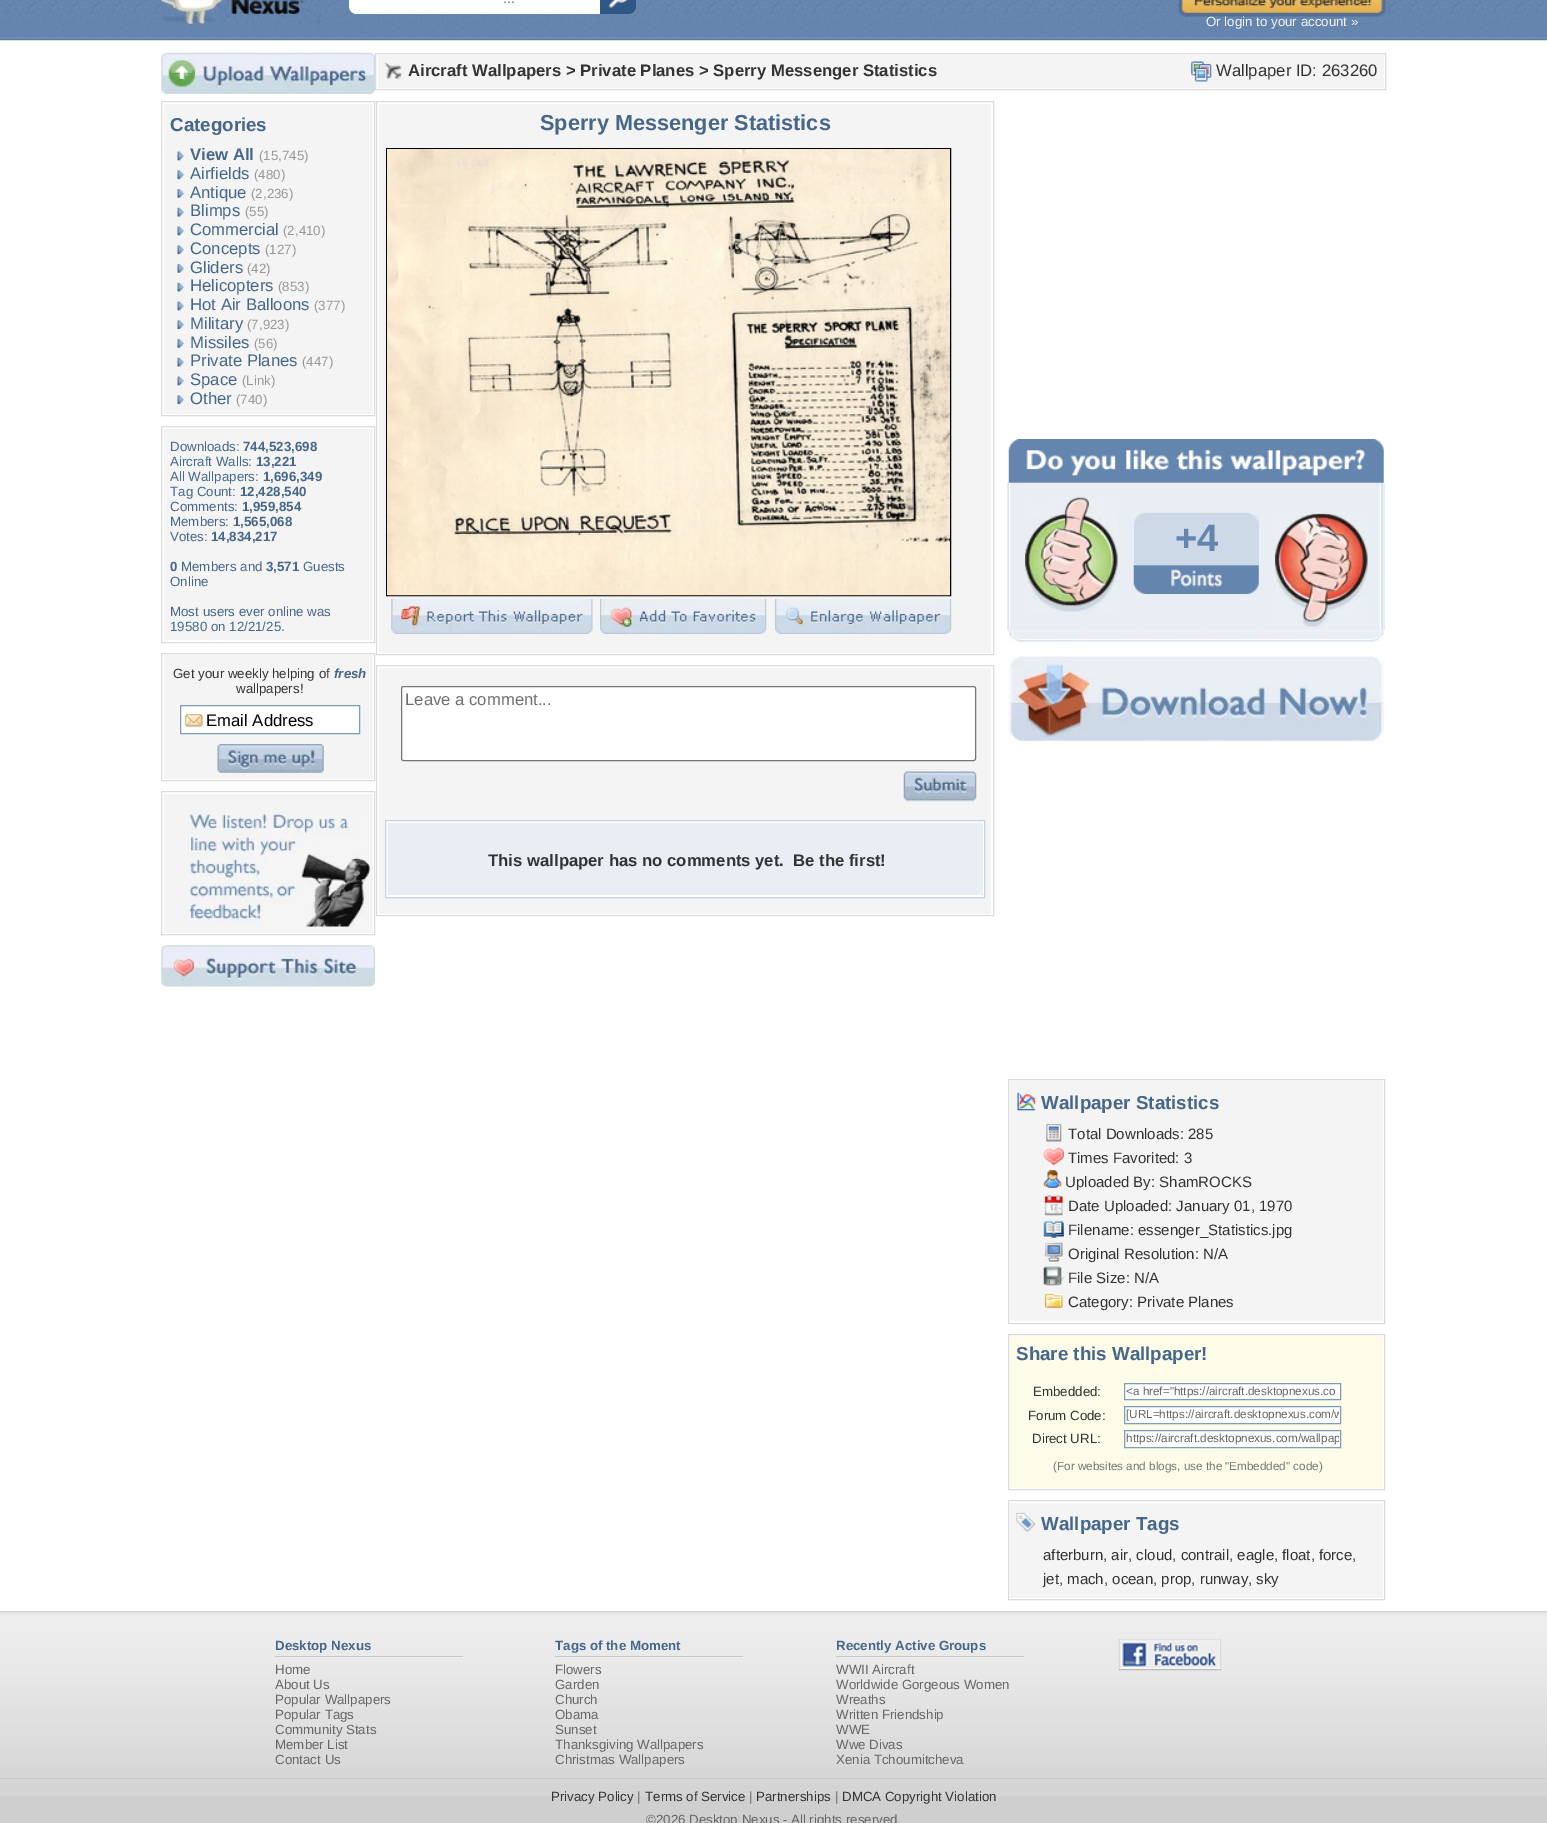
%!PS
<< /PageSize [1547 1823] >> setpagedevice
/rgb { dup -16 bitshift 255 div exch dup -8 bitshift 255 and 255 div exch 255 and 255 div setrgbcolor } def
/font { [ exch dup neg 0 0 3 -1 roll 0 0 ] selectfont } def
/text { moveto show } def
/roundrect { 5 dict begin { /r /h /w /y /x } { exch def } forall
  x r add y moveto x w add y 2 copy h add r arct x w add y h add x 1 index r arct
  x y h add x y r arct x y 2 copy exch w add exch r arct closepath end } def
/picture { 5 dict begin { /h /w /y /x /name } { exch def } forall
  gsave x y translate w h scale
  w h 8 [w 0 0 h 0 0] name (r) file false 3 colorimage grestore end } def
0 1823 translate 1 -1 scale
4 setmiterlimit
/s1 { /LiberationSans-Regular 15 font 16#777777 rgb } def
/s2 { /LiberationSans-Regular 13.3 font 16#F4F4F4 rgb } def
/s3 { /LiberationSans-Bold 18.75 font 16#46678A rgb } def
/s4 { /LiberationSans-Bold 16.7 font 16#46678A rgb } def
/s5 { /LiberationSans-Regular 13.3 font 16#999999 rgb } def
/s6 { /LiberationSans-Regular 16.7 font 16#46678A rgb } def
/s7 { /LiberationSans-Regular 13.3 font 16#46678A rgb } def
/s8 { /LiberationSans-Bold 13.3 font 16#46678A rgb } def
/s9 { /LiberationSans-Regular 13.3 font 16#333333 rgb } def
/s10 { /LiberationSans-BoldItalic 13.3 font 16#46678A rgb } def
/s11 { /LiberationSans-Regular 16.7 font 16#000000 rgb } def
/s12 { /LiberationSans-Bold 16.7 font 16#333333 rgb } def
/s13 { /LiberationSans-Regular 16.7 font 16#333333 rgb } def
/s14 { /LiberationSans-Bold 21.7 font 16#46678A rgb } def
/s15 { /LiberationSans-Regular 16.7 font 16#707070 rgb } def
/s16 { /LiberationSans-Bold 38 font 16#6485AE rgb } def
/s17 { /LiberationSans-Regular 15 font 16#333333 rgb } def
/s18 { /LiberationSans-Regular 11.7 font 16#666666 rgb } def
/s19 { /LiberationSans-Regular 11.7 font 16#777777 rgb } def
/s20 { /LiberationSans-Regular 13.3 font 16#666666 rgb } def
16#FFFFFF rgb
0 0 1547 1823 rectfill
(pic1.raw) 0 0 1547 41 picture
(pic2.raw) 161 0 160 24 picture
16#6987AB rgb
811 0 1 1 rectfill
16#FFFFFF rgb
357 -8 moveto 620 -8 lineto 620 14 lineto 357 14 lineto 352.5 14 349 10.5 349 6 curveto 349 0 lineto 349 -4.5 352.5 -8 357 -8 curveto closepath fill
s1
(...) 503 3 text
16#305686 rgb
600 -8 moveto 628 -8 lineto 632.5 -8 636 -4.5 636 0 curveto 636 6 lineto 636 10.5 632.5 14 628 14 curveto 600 14 lineto closepath fill
(pic3.raw) 608 0 20 8 picture
(pic4.raw) 1178 0 208 17 picture
s2
(Or login to your account ») 1206 26 text
(pic5.raw) 161 52 214 42 picture
16#DCDCDC rgb
161.5 101.5 213 314 rectstroke
16#F4F4F4 rgb
164 104 209 310 rectfill
s3
(Categories) 170 131 text
(pic6.raw) 177 151 7 10 picture
s4
(View All) 190 160 text
s5
(\(15,745\)) 259 160 text
(pic7.raw) 177 170 7 10 picture
s6
(Airfields) 190 179 text
s5
(\(480\)) 254 179 text
(pic8.raw) 177 188 7 10 picture
s6
(Antique) 190 198 text
s5
(\(2,236\)) 251 198 text
(pic9.raw) 177 207 7 10 picture
s6
(Blimps) 190 216 text
s5
(\(55\)) 245 216 text
(pic6.raw) 177 226 7 10 picture
s6
(Commercial) 190 235 text
s5
(\(2,410\)) 283 235 text
(pic10.raw) 177 245 7 10 picture
s6
(Concepts) 190 254 text
s5
(\(127\)) 265 254 text
(pic8.raw) 177 263 7 10 picture
s6
(Gliders) 190 273 text
s5
(\(42\)) 247 273 text
(pic9.raw) 177 282 7 10 picture
s6
(Helicopters) 190 291 text
s5
(\(853\)) 278 291 text
(pic6.raw) 177 301 7 10 picture
s6
(Hot Air Balloons) 190 310 text
s5
(\(377\)) 314 310 text
(pic10.raw) 177 320 7 10 picture
s6
(Military) 190 329 text
s5
(\(7,923\)) 247 329 text
(pic8.raw) 177 338 7 10 picture
s6
(Missiles) 190 348 text
s5
(\(56\)) 254 348 text
(pic9.raw) 177 357 7 10 picture
s6
(Private Planes) 190 366 text
s5
(\(447\)) 302 366 text
(pic6.raw) 177 376 7 10 picture
s6
(Space) 190 385 text
s5
(\(Link\)) 242 385 text
(pic10.raw) 177 395 7 10 picture
s6
(Other) 190 404 text
s5
(\(740\)) 236 404 text
16#DCDCDC rgb
161.5 426.5 213 216 rectstroke
16#F4F4F4 rgb
164 429 209 211 rectfill
s7
(Downloads:) 170 451 text
s8
(744,523,698) 243 451 text
s7
(Aircraft Walls:) 170 466 text
s8
(13,221) 256 466 text
s7
(All Wallpapers:) 170 481 text
s8
(1,696,349) 263 481 text
s7
(Tag Count:) 170 496 text
s8
(12,428,540) 240 496 text
s7
(Comments:) 170 511 text
s8
(1,959,854) 242 511 text
s7
(Members:) 170 526 text
s8
(1,565,068) 233 526 text
s7
(Votes:) 170 541 text
s8
(14,834,217) 211 541 text
(0) 170 571 text
s7
(Members and) 181 571 text
s8
(3,571) 266 571 text
s7
(Guests) 303 571 text
(Online) 170 586 text
(Most users ever online was) 170 616 text
(19580 on 12/21/25.) 170 631 text
16#DCDCDC rgb
161.5 653.5 213 127 rectstroke
16#F4F4F4 rgb
164 655 209 124 rectfill
s9
(Get your weekly helping of) 173 678 text
s10
(fresh) 334 678 text
s9
(wallpapers!) 236 693 text
16#FFFFFF rgb
181 706 178 27 rectfill
(pic11.raw) 181 714 22 13 picture
16#7F9DB9 rgb
180.5 705.5 179 28 rectstroke
s11
(Email Address) 206 726 text
(pic12.raw) 217 744 107 29 picture
16#DCDCDC rgb
161.5 791.5 213 143 rectstroke
16#F4F4F4 rgb
164 794 209 139 rectfill
(pic13.raw) 189 813 181 114 picture
(pic14.raw) 161 945 214 42 picture
16#DCDCDC rgb
375.5 53.5 1010 36 rectstroke
16#F4F4F4 rgb
378 55 1006 33 rectfill
(pic15.raw) 384 62 18 18 picture
s12
(Aircraft Wallpapers > Private Planes > Sperry Messenger Statistics) 408 76 text
(pic16.raw) 1191 61 21 21 picture
s13
(Wallpaper ID: 263260) 1216 76 text
16#DCDCDC rgb
376.5 101.5 617 553 rectstroke
16#F4F4F4 rgb
379 104 612 549 rectfill
s14
(Sperry Messenger Statistics) 540 130 text
16#000000 rgb
386.5 148.5 564 447 rectstroke
(pic17.raw) 387 149 563 447 picture
(pic18.raw) 391 599 202 35 picture
(pic19.raw) 600 599 167 35 picture
(pic20.raw) 775 599 177 35 picture
16#DCDCDC rgb
376.5 665.5 617 250 rectstroke
16#F4F4F4 rgb
379 668 612 246 rectfill
16#FFFFFF rgb
401.5 686.5 574 74 2 roundrect gsave fill grestore
16#767676 rgb
stroke
s15
(Leave a comment...) 405 705 text
(pic21.raw) 903 771 74 31 picture
16#FFFFFF rgb
385.5 820.5 moveto 984.5 820.5 lineto 984.5 897.5 lineto 385.5 897.5 lineto closepath gsave fill grestore
16#C5D2E2 rgb
stroke
16#E9EEF4 rgb
388 823 595 72 rectfill
s12
(This wallpaper has no comments yet.  Be the first!) 488 866 text
16#E9EEF4 rgb
1382 483 3 147 rectfill
(pic23.raw) 1007 482 376 149 picture
(pic22.raw) 1008 439 376 44 picture
(pic24.raw) 1025 497 93 115 picture
16#CDD9E7 rgb
1134 513 125 52 rectfill
(pic25.raw) 1134 512 125 11 picture
s16
(+4) 1175 551 text
(pic26.raw) 1133 565 126 29 picture
(pic27.raw) 1275 512 93 115 picture
(pic28.raw) 1008 630 376 12 picture
(pic29.raw) 1008 656 376 86 picture
16#DCDCDC rgb
1008.5 1079.5 376 244 rectstroke
16#F4F4F4 rgb
1010 1081 373 240 rectfill
(pic30.raw) 1017 1092 19 19 picture
s3
(Wallpaper Statistics) 1041 1109 text
(pic31.raw) 1046 1123 16 19 picture
s17
(Total Downloads: 285) 1068 1139 text
(pic32.raw) 1043 1147 21 19 picture
(Times Favorited: 3) 1068 1163 text
(pic33.raw) 1043 1170 19 18 picture
(Uploaded By: ShamROCKS) 1065 1187 text
(pic34.raw) 1044 1195 19 21 picture
(Date Uploaded: January 01, 1970) 1068 1211 text
(pic35.raw) 1043 1220 21 18 picture
(Filename: essenger_Statistics.jpg) 1068 1235 text
(pic36.raw) 1044 1242 19 20 picture
(Original Resolution: N/A) 1068 1259 text
(pic37.raw) 1043 1266 21 20 picture
(File Size: N/A) 1068 1283 text
(pic38.raw) 1044 1293 19 15 picture
(Category: Private Planes) 1068 1307 text
16#DCDCDC rgb
1008.5 1334.5 376 155 rectstroke
16#FDFCE8 rgb
1010 1336 373 152 rectfill
s3
(Share this Wallpaper!) 1016 1360 text
s9
(Embedded:) 1033 1396 text
16#FFFFFF rgb
1124.5 1383.5 moveto 1340.5 1383.5 lineto 1340.5 1399.5 lineto 1124.5 1399.5 lineto closepath gsave fill grestore
16#7F9DB9 rgb
stroke
s18
(<a href="https://aircraft.desktopnexus.co) 1126 1395 text
s9
(Forum Code:) 1028 1420 text
16#FFFFFF rgb
1124.5 1406.5 moveto 1340.5 1406.5 lineto 1340.5 1423.5 lineto 1124.5 1423.5 lineto closepath gsave fill grestore
16#7F9DB9 rgb
stroke
gsave
1126 1409 213 12 rectclip
s18
([URL=https://aircraft.desktopnexus.com/w) 1126 1418 text
grestore
s9
(Direct URL:) 1032 1443 text
16#FFFFFF rgb
1124.5 1430.5 moveto 1340.5 1430.5 lineto 1340.5 1447.5 lineto 1124.5 1447.5 lineto closepath gsave fill grestore
16#7F9DB9 rgb
stroke
gsave
1126 1433 213 12 rectclip
s18
(https://aircraft.desktopnexus.com/wallpap) 1126 1442 text
grestore
s19
(\(For websites and blogs, use the "Embedded" code\)) 1053 1470 text
16#DCDCDC rgb
1008.5 1500.5 376 99 rectstroke
16#F4F4F4 rgb
1010 1503 373 95 rectfill
(pic39.raw) 1016 1512 20 20 picture
s3
(Wallpaper Tags) 1041 1530 text
s17
(afterburn, air, cloud, contrail, eagle, float, force,) 1043 1560 text
(jet, mach, ocean, prop, runway, sky) 1043 1584 text
16#CFCFCF rgb
0 1611 1547 212 rectfill
(pic40.raw) 0 1611 1547 185 picture
s8
(Desktop Nexus) 275 1650 text
16#C9C9C9 rgb
275 1656 188 1 rectfill
s20
(Home) 275 1674 text
(About Us) 275 1689 text
(Popular Wallpapers) 275 1704 text
(Popular Tags) 275 1719 text
(Community Stats) 275 1734 text
(Member List) 275 1749 text
(Contact Us) 275 1764 text
s8
(Tags of the Moment) 555 1650 text
16#C9C9C9 rgb
555 1656 188 1 rectfill
s20
(Flowers) 555 1674 text
(Garden) 555 1689 text
(Church) 555 1704 text
(Obama) 555 1719 text
(Sunset) 555 1734 text
(Thanksgiving Wallpapers) 555 1749 text
(Christmas Wallpapers) 555 1764 text
s8
(Recently Active Groups) 836 1650 text
16#C9C9C9 rgb
836 1656 188 1 rectfill
s20
(WWII Aircraft) 836 1674 text
(Worldwide Gorgeous Women) 836 1689 text
(Wreaths) 836 1704 text
(Written Friendship) 836 1719 text
(WWE) 836 1734 text
(Wwe Divas) 836 1749 text
(Xenia Tchoumitcheva) 836 1764 text
(pic41.raw) 1118 1639 104 32 picture
16#C9C9C9 rgb
0 1778 1547 1 rectfill
s9
(Privacy Policy) 551 1801 text
s20
(|) 637 1801 text
s9
(Terms of Service) 645 1801 text
s20
(|) 749 1801 text
s9
(Partnerships) 756 1801 text
s20
(|) 835 1801 text
s9
(DMCA Copyright Violation) 842 1801 text
s20
(©2026 Desktop Nexus - All rights reserved.) 646 1824 text
showpage
